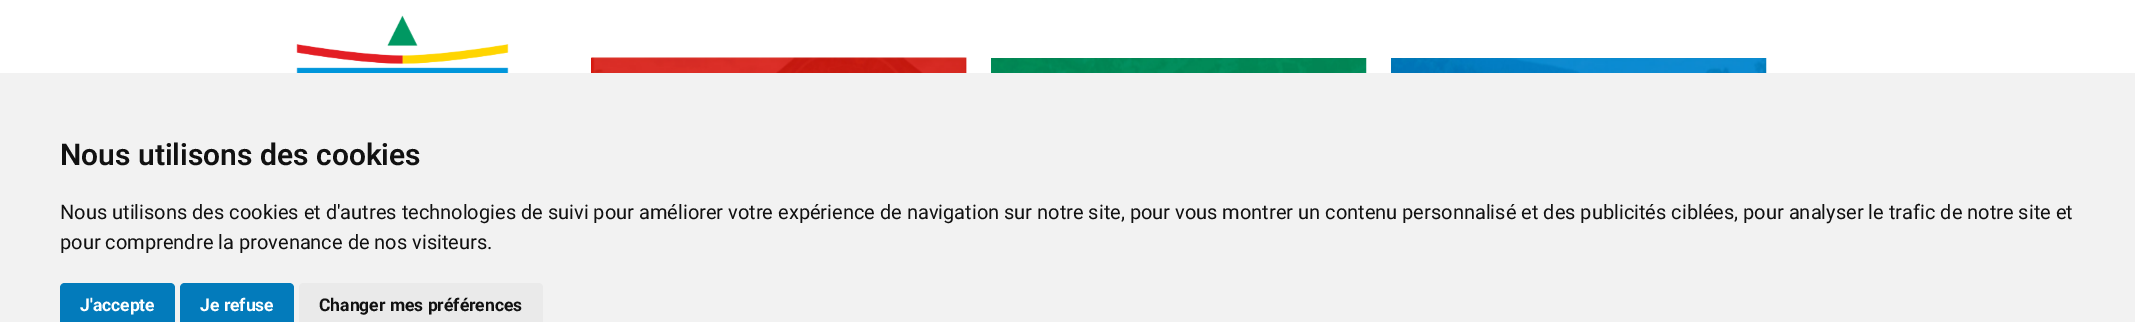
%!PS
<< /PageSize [2135 322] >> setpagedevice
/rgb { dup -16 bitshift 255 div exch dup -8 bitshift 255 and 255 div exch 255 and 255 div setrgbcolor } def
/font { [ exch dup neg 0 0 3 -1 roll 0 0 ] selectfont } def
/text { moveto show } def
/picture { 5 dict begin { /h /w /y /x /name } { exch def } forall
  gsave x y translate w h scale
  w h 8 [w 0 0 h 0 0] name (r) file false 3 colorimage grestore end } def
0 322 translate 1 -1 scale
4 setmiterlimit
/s1 { /Roboto-SemiBold 30 font 16#111111 rgb } def
/s2 { /Roboto-Regular 20 font 16#111111 rgb } def
/s3 { /Roboto-Bold 17.5 font 16#FFFFFF rgb } def
/s4 { /Roboto-Bold 17.5 font 16#111111 rgb } def
16#FFFFFF rgb
0 0 2135 322 rectfill
(pic1.raw) 296 15 213 58 picture
(pic2.raw) 591 57 376 16 picture
(pic3.raw) 991 58 376 15 picture
(pic4.raw) 1391 58 376 15 picture
16#F2F2F2 rgb
0 73 2135 249 rectfill
s1
(Nous utilisons des cookies) 60 165 text
s2
(Nous utilisons des cookies et d'autres technologies de suivi pour améliorer votre expérience de navigation sur notre site, pour vous montrer un contenu personnalisé et des publicités ciblées, pour analyser le trafic de notre site et) 60 219 text
(pour comprendre la provenance de nos visiteurs.) 60 249 text
16#037BBB rgb
65 283 moveto 170 283 lineto 173 283 175 285 175 288 curveto 175 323 lineto 60 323 lineto 60 288 lineto 60 285 62 283 65 283 curveto closepath fill
s3
(J'accepte) 80 311 text
16#037BBB rgb
185 283 moveto 289 283 lineto 292 283 294 285 294 288 curveto 294 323 lineto 180 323 lineto 180 288 lineto 180 285 182 283 185 283 curveto closepath fill
s3
(Je refuse) 200 311 text
16#EAEAEA rgb
304 283 moveto 538 283 lineto 541 283 543 285 543 288 curveto 543 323 lineto 299 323 lineto 299 288 lineto 299 285 301 283 304 283 curveto closepath fill
s4
(Changer mes préférences) 319 311 text
showpage
